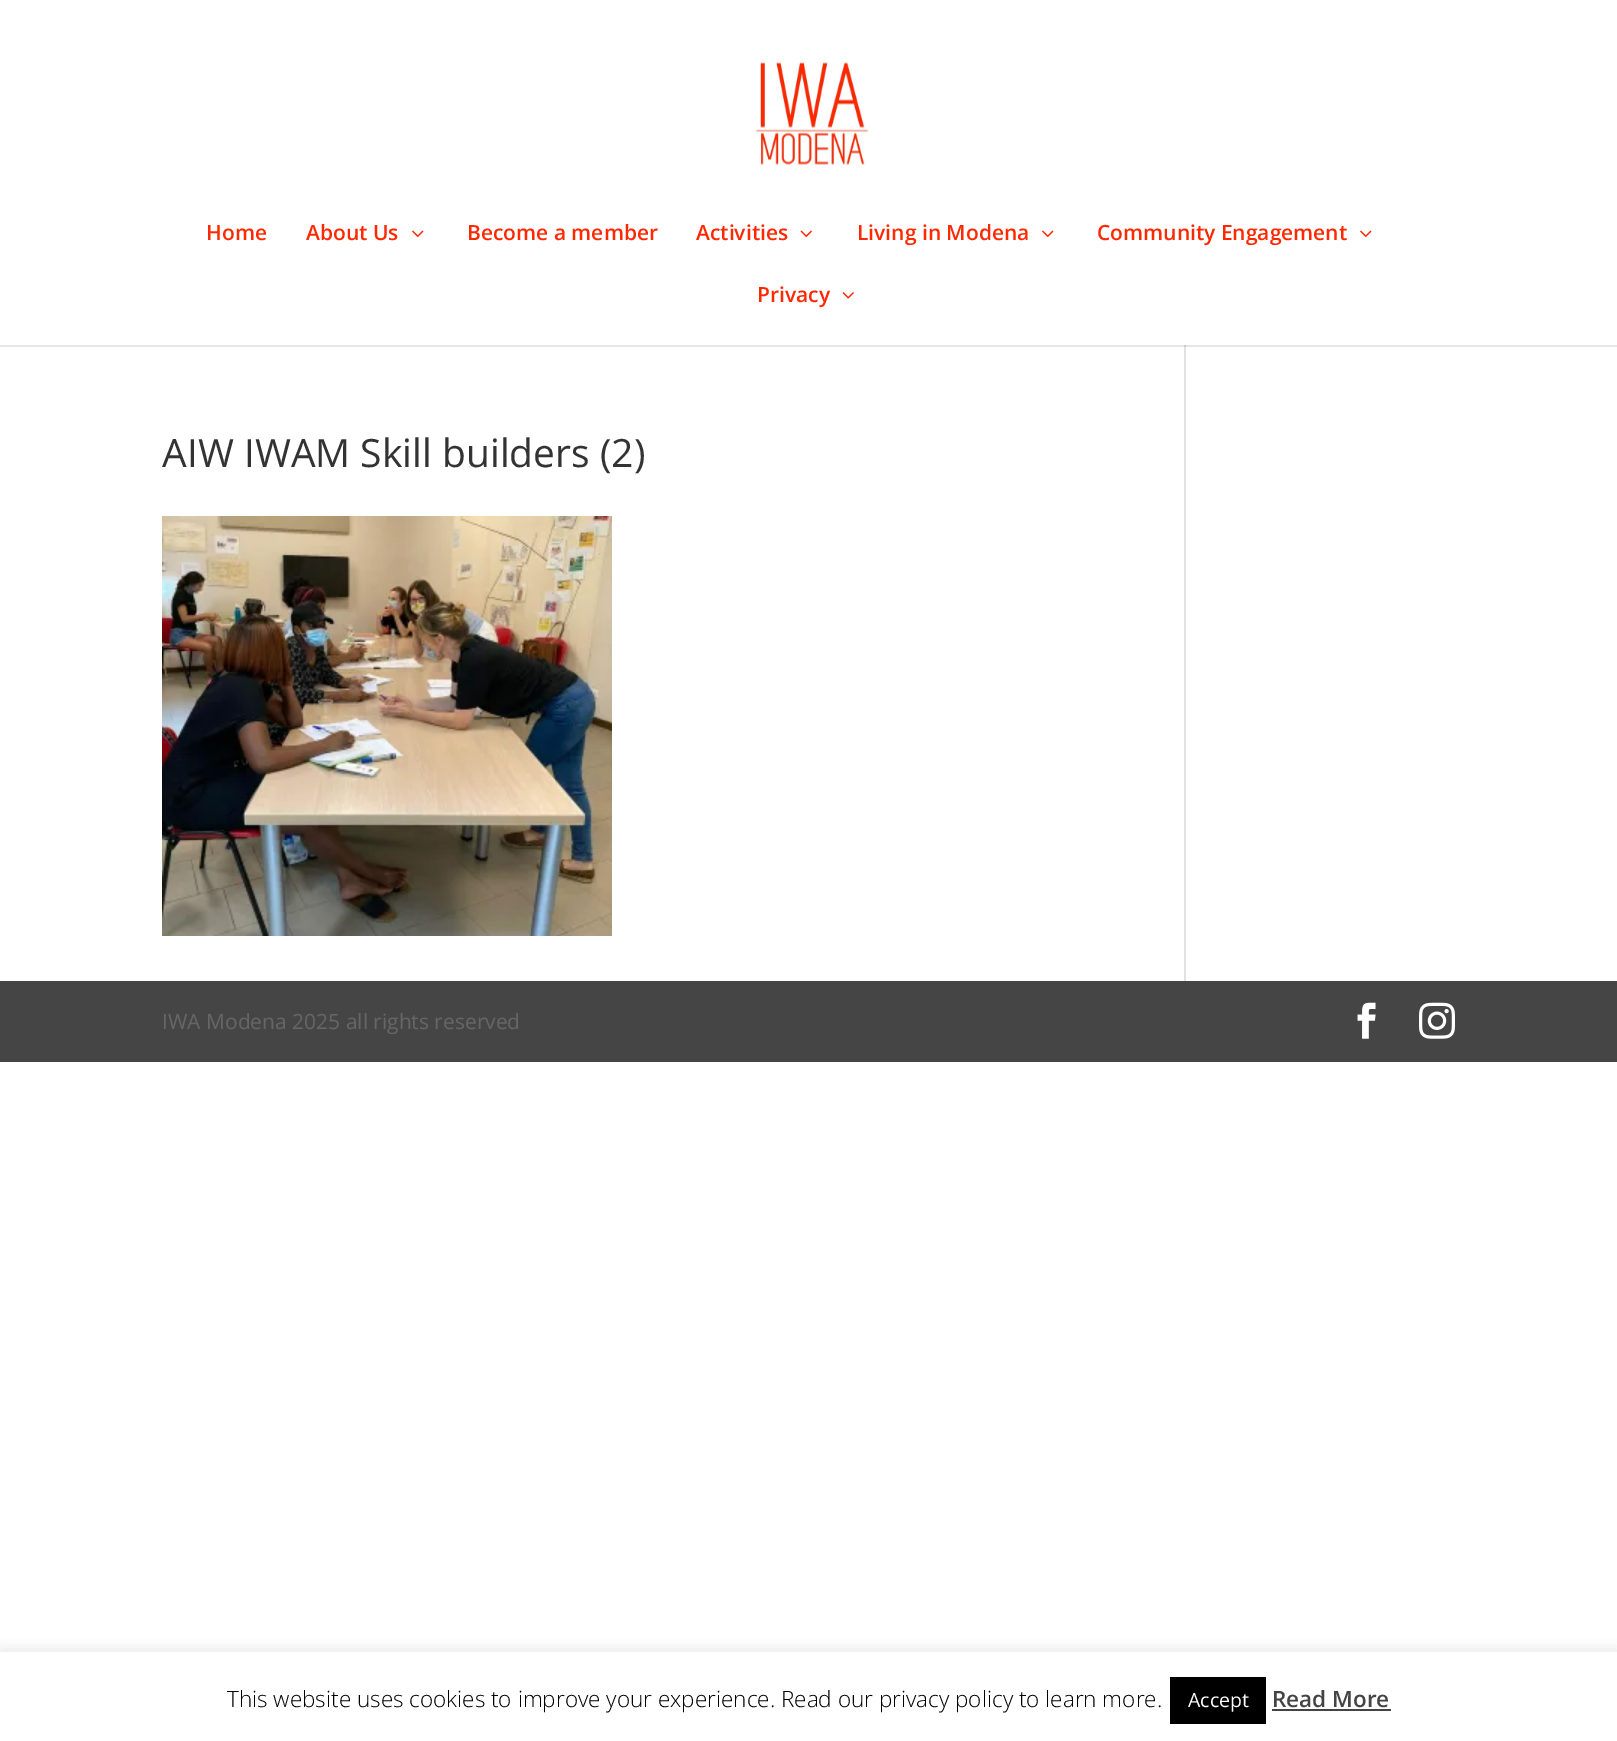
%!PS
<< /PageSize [1617 1741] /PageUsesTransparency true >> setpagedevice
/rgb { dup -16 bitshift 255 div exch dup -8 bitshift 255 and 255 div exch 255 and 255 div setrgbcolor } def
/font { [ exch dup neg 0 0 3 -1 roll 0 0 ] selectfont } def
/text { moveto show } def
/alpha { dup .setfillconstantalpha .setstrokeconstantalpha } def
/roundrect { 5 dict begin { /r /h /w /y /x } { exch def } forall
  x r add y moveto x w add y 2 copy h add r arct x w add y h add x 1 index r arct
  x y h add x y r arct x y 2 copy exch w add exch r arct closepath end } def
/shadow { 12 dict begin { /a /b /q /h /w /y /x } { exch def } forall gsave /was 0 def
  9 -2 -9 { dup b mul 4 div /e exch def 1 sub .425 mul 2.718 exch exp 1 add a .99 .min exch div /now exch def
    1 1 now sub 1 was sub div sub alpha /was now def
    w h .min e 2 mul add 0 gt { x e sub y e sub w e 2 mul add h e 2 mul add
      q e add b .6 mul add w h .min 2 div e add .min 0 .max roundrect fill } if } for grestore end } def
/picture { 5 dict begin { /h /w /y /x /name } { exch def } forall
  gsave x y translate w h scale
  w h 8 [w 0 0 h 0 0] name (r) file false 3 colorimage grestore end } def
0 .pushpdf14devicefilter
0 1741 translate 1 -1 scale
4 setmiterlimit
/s1 { /OpenSans-SemiBold 21 font 16#FF2800 rgb } def
/s2 { /OpenSans-Regular 39 font 16#333333 rgb } def
/s3 { /OpenSans-Regular 21 font 16#666666 rgb } def
/s4 { /OpenSans-Light 22.5 font 16#000000 rgb } def
/s5 { /OpenSans-Regular 19.5 font 16#FFFFFF rgb } def
/s6 { /OpenSans-SemiBold 22.5 font 16#444444 rgb } def
16#FFFFFF rgb
0 0 1617 1741 rectfill
16#E6E6E6 rgb
0 345 1617 2 rectfill
(pic1.raw) 756 62 113 104 picture
s1
(Home) 206 240 text
(About Us) 306 240 text
(pic2.raw) 412 230 12 7 picture
(Become a member) 467 240 text
(Activities) 696 240 text
(pic3.raw) 800 230 12 7 picture
(Living in Modena) 857 240 text
(pic2.raw) 1042 230 12 7 picture
(Community Engagement) 1097 240 text
(pic2.raw) 1360 230 12 7 picture
(Privacy) 757 302 text
(pic4.raw) 842 292 12 7 picture
s2
(AIW IWAM Skill builders \(2\)) 162 467 text
(pic5.raw) 162 516 450 420 picture
16#E2E2E2 rgb
1184 345 2 636 rectfill
16#CBCBCB rgb
1184 345 2 2 rectfill
16#454545 rgb
0 981 1617 81 rectfill
s3
(IWA Modena 2025 all rights reserved) 162 1029 text
(pic6.raw) 1357 1002 19 37 picture
(pic7.raw) 1419 1002 36 37 picture
gsave
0 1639 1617 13 rectclip
16#ACABAB rgb
0 1650 1617 90 0 7.5 0.3 shadow
grestore
s4
(This website uses cookies to improve your experience. Read our privacy policy to learn more.) 227 1707 text
1170 1677 96 47 rectfill
s5
(Accept) 1188 1707 text
s6
(Read More) 1272 1707 text
1272 1709 119 2 rectfill
.poppdf14devicefilter showpage
